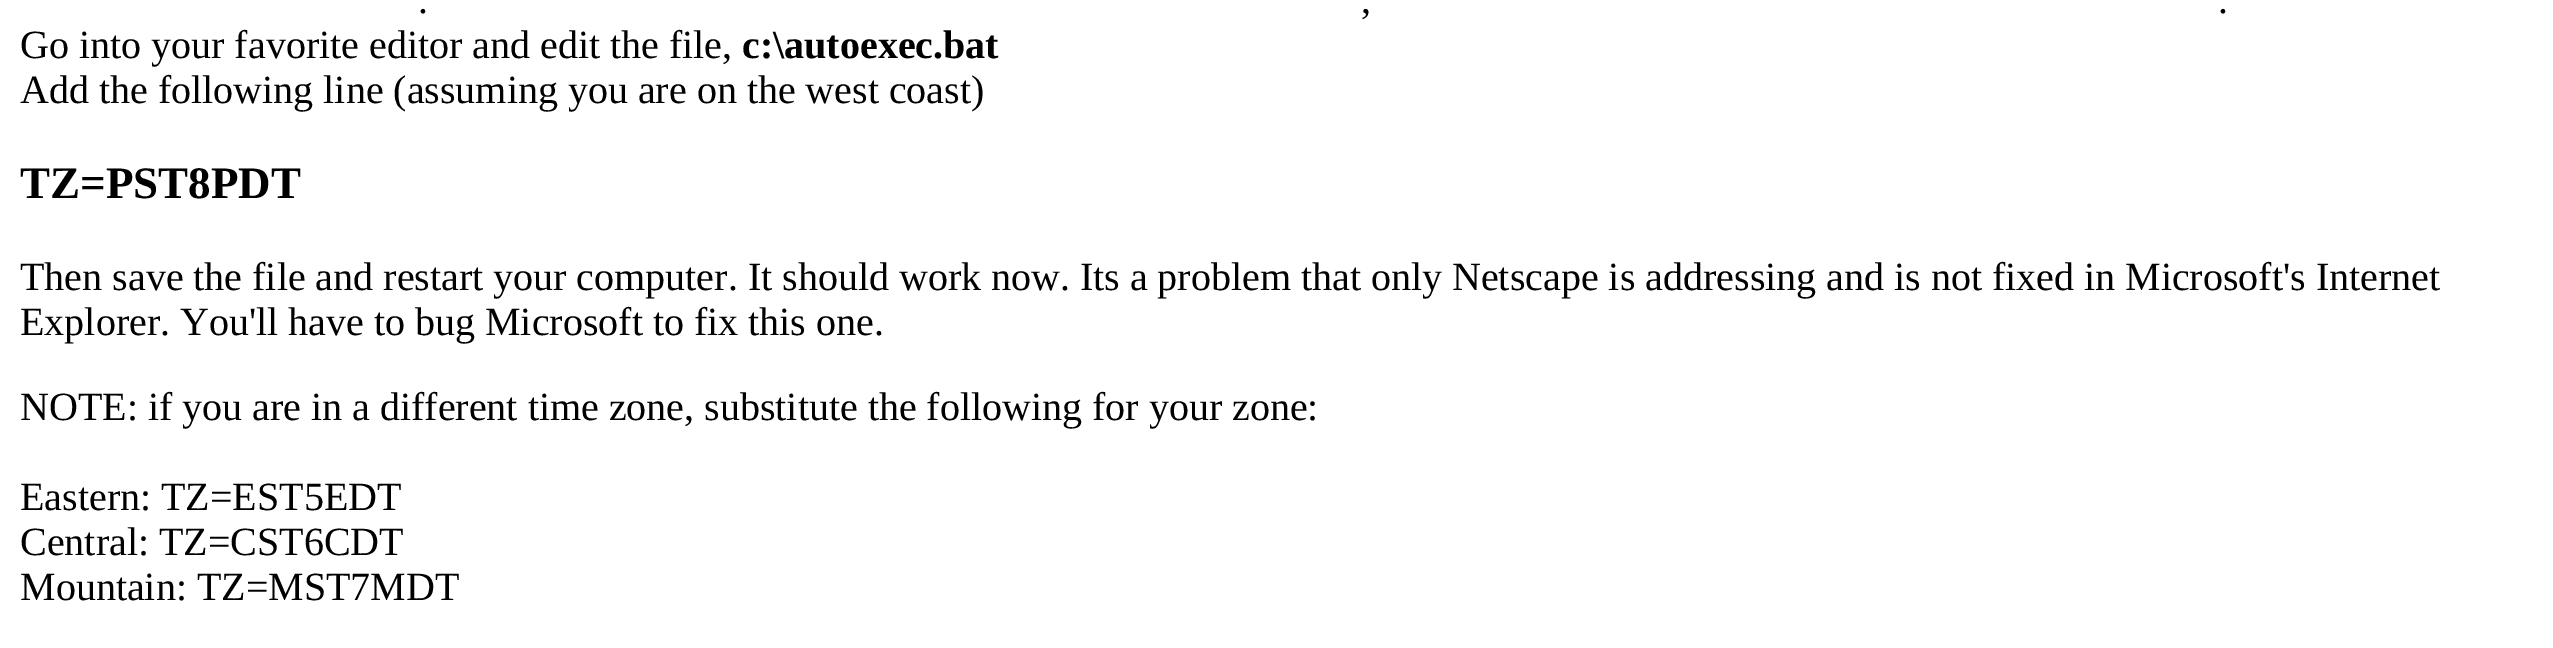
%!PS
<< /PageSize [2553 648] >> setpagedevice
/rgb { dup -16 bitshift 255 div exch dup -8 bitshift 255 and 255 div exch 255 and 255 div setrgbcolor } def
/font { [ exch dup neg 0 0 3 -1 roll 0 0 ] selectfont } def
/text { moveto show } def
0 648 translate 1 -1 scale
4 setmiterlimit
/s1 { /LiberationSerif-Regular 40 font 16#000000 rgb } def
/s2 { /LiberationSerif-Bold 40 font 16#000000 rgb } def
/s3 { /LiberationSerif-Bold 45 font 16#000000 rgb } def
16#FFFFFF rgb
0 0 2553 648 rectfill
s1
(.) 418 13 text
(,) 1361 13 text
(.) 2218 13 text
(Go into your favorite editor and edit the file,) 20 58 text
s2
(c:\\autoexec.bat) 742 58 text
s1
(Add the following line \(assuming you are on the west coast\)) 20 103 text
s3
(TZ=PST8PDT) 20 198 text
s1
(Then save the file and restart your computer. It should work now. Its a problem that only Netscape is addressing and is not fixed in Microsoft's Internet) 20 290 text
(Explorer. You'll have to bug Microsoft to fix this one.) 20 335 text
(NOTE: if you are in a different time zone, substitute the following for your zone:) 20 420 text
(Eastern: TZ=EST5EDT) 20 510 text
(Central: TZ=CST6CDT) 20 555 text
(Mountain: TZ=MST7MDT) 20 600 text
showpage
